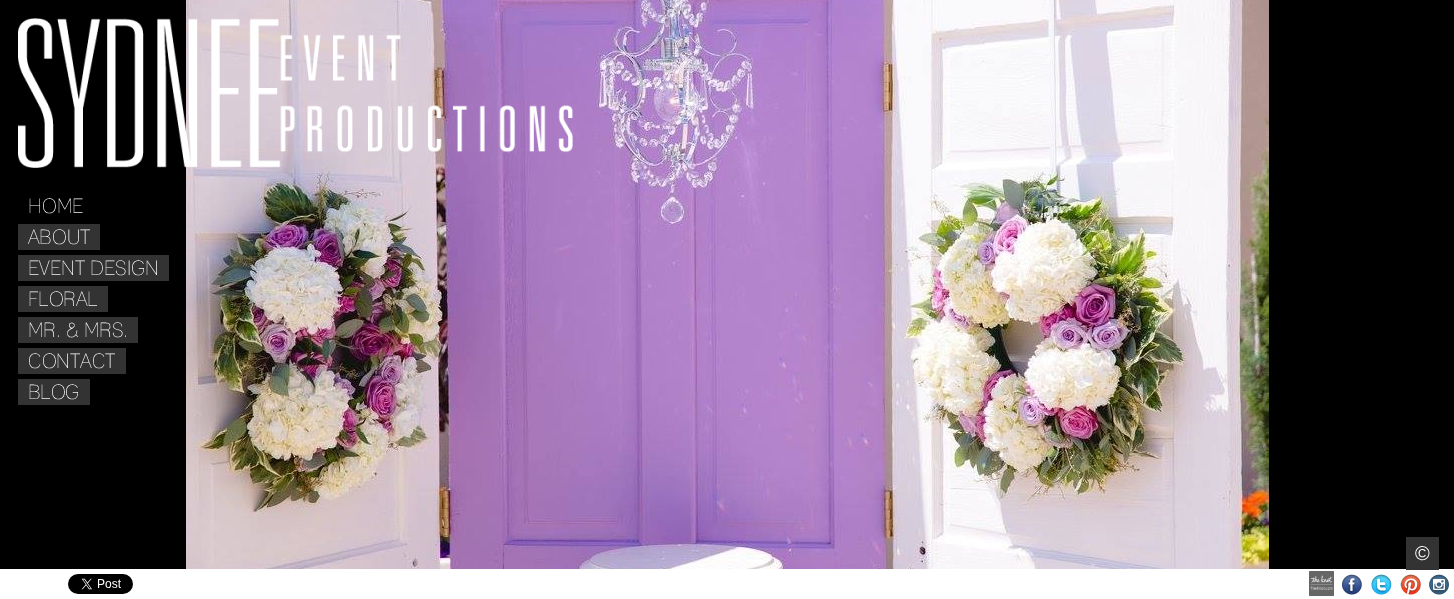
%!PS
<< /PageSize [1454 599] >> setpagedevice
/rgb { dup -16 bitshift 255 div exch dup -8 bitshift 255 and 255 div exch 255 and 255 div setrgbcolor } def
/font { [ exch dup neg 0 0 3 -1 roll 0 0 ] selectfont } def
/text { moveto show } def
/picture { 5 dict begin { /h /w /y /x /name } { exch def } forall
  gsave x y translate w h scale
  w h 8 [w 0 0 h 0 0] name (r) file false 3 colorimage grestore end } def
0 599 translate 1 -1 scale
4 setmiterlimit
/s1 { /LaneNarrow-Regular 20 font 16#FFFFFF rgb } def
/s2 { /LiberationSans-Regular 20 font 16#FFFFFF rgb } def
16#000000 rgb
0 0 1454 599 rectfill
(pic2.raw) 186 0 1083 569 picture
(pic1.raw) 18 18 555 150 picture
s1
(HOME) 28 213 text
16#333333 rgb
18 224 82 26 rectfill
s1
(ABOUT) 28 244 text
16#333333 rgb
18 255 151 26 rectfill
s1
(EVENT DESIGN) 28 275 text
16#333333 rgb
18 286 90 26 rectfill
s1
(FLORAL) 28 306 text
16#333333 rgb
18 317 120 26 rectfill
s1
(MR. & MRS.) 28 337 text
16#333333 rgb
18 348 108 26 rectfill
s1
(CONTACT) 28 368 text
16#333333 rgb
18 379 72 26 rectfill
s1
(BLOG) 28 399 text
0 569 1454 30 rectfill
16#333333 rgb
1406 537 33 33 rectfill
s2
(©) 1415 560 text
(pic3.raw) 68 574 65 20 picture
(pic4.raw) 1342 574 20 21 picture
(pic5.raw) 1371 574 21 21 picture
(pic6.raw) 1400 574 21 21 picture
(pic7.raw) 1429 574 20 21 picture
(pic8.raw) 1309 571 25 25 picture
showpage
